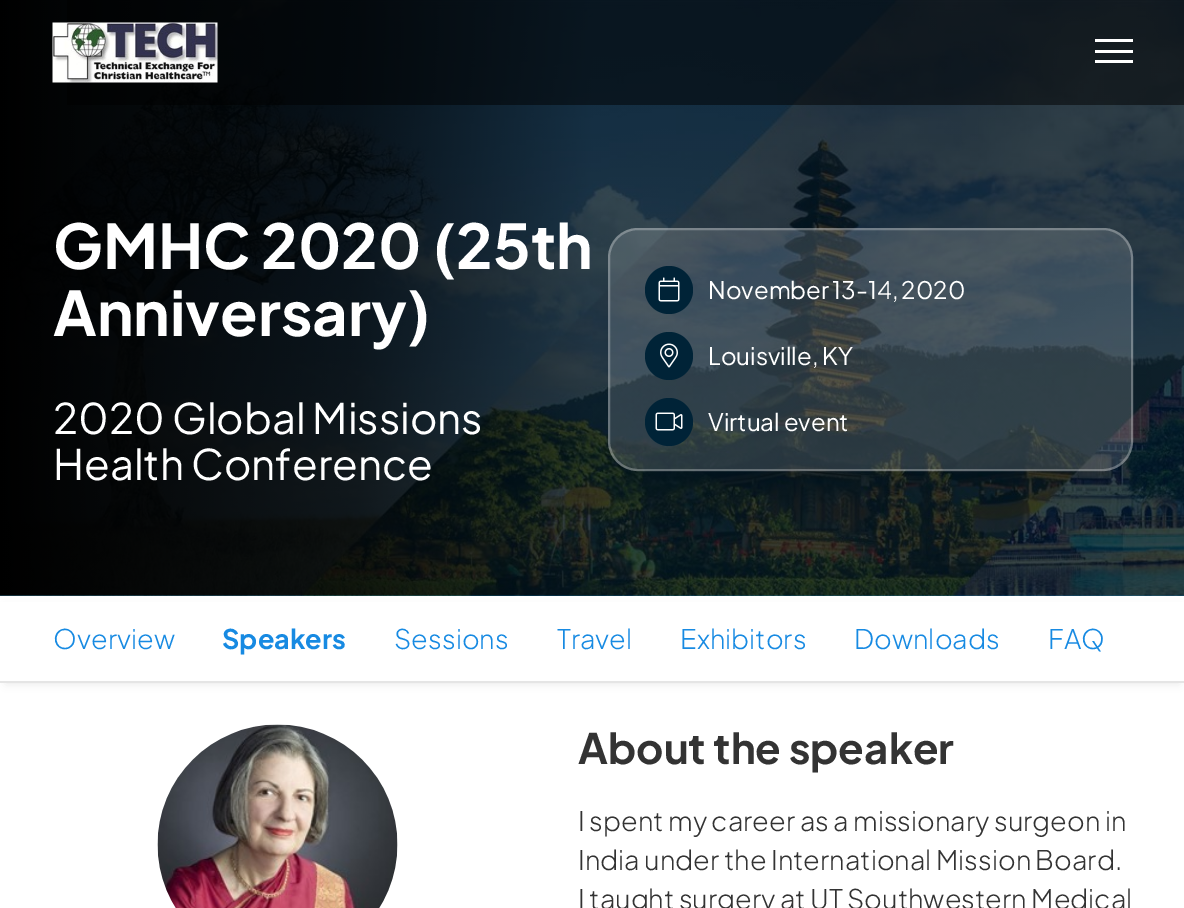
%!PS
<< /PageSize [1184 908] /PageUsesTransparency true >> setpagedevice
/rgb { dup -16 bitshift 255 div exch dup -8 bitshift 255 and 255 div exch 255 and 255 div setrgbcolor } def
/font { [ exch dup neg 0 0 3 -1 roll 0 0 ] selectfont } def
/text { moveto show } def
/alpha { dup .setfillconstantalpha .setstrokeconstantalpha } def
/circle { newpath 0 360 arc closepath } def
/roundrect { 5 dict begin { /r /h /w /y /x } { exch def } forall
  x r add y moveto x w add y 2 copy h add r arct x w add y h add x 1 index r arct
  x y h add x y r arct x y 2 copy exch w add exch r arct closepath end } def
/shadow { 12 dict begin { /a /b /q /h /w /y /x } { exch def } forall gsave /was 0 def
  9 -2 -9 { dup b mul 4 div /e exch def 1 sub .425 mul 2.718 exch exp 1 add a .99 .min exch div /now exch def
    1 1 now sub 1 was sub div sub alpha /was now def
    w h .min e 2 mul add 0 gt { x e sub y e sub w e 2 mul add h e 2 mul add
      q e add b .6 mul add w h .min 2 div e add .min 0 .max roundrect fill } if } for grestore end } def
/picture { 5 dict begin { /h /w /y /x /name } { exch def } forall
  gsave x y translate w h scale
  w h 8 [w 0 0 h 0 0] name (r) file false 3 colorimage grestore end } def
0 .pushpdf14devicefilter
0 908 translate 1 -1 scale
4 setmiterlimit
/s1 { /PlusJakartaSans-Bold 61.5 font 16#FFFFFF rgb } def
/s2 { /PlusJakartaSans-Regular 42 font 16#FFFFFF rgb } def
/s3 { /PlusJakartaSans-Regular 24 font 16#FFFFFF rgb } def
/s4 { /PlusJakartaSans-Light 27 font 16#178AE2 rgb } def
/s5 { /PlusJakartaSans-Bold 27 font 16#178AE2 rgb } def
/s6 { /PlusJakartaSans-Bold 42 font 16#333333 rgb } def
/s7 { /PlusJakartaSans-Light 27 font 16#333333 rgb } def
16#FFFFFF rgb
0 0 1184 908 rectfill
16#004165 rgb
0 595 1184 1 rectfill
(pic2.raw) 0 0 1184 596 picture
0.5 alpha
16#000000 rgb
67 0 1117 105 rectfill
1 alpha
(pic1.raw) 52 22 166 61 picture
16#FFFFFF rgb
1095 39 38 3 rectfill
1095 50 38 3 rectfill
1095 60 38 3 rectfill
s1
(GMHC 2020 \(25th) 53 269 text
(Anniversary\)) 53 336 text
s2
(2020 Global Missions) 53 434 text
(Health Conference) 53 480 text
0.15 alpha
608 228 525 243 30 roundrect fill
0.28 alpha
2 setlinewidth
609 229 523 241 29 roundrect stroke
1 alpha
16#002337 rgb
669 290 24 circle fill
(pic3.raw) 658 277 22 25 picture
/PlusJakartaSans-Regular 24 font
16#FFFFFF rgb
708 299 moveto -1 0 32 (November 13-14, 2020) widthshow
16#002337 rgb
669 356 24 circle fill
(pic4.raw) 660 343 18 25 picture
s3
(Louisville, KY) 708 365 text
16#002337 rgb
669 422 24 circle fill
(pic5.raw) 655 412 28 19 picture
s3
(Virtual event) 708 431 text
16#000000 rgb
6 608 1173 75 0 4.5 0.1 shadow
16#FFFFFF rgb
0 602 1184 79 rectfill
16#E5E5E5 rgb
0 681 1184 2 rectfill
s4
(Overview) 53 649 text
s5
(Speakers) 222 649 text
s4
(Sessions) 394 649 text
(Travel) 557 649 text
(Exhibitors) 680 649 text
(Downloads) 854 649 text
(FAQ) 1048 649 text
(pic6.raw) 157 724 241 184 picture
s6
(About the speaker) 578 764 text
s7
(I spent my career as a missionary surgeon in) 578 831 text
(India under the International Mission Board.) 578 870 text
(I taught surgery at UT Southwestern Medical) 578 909 text
.poppdf14devicefilter showpage
